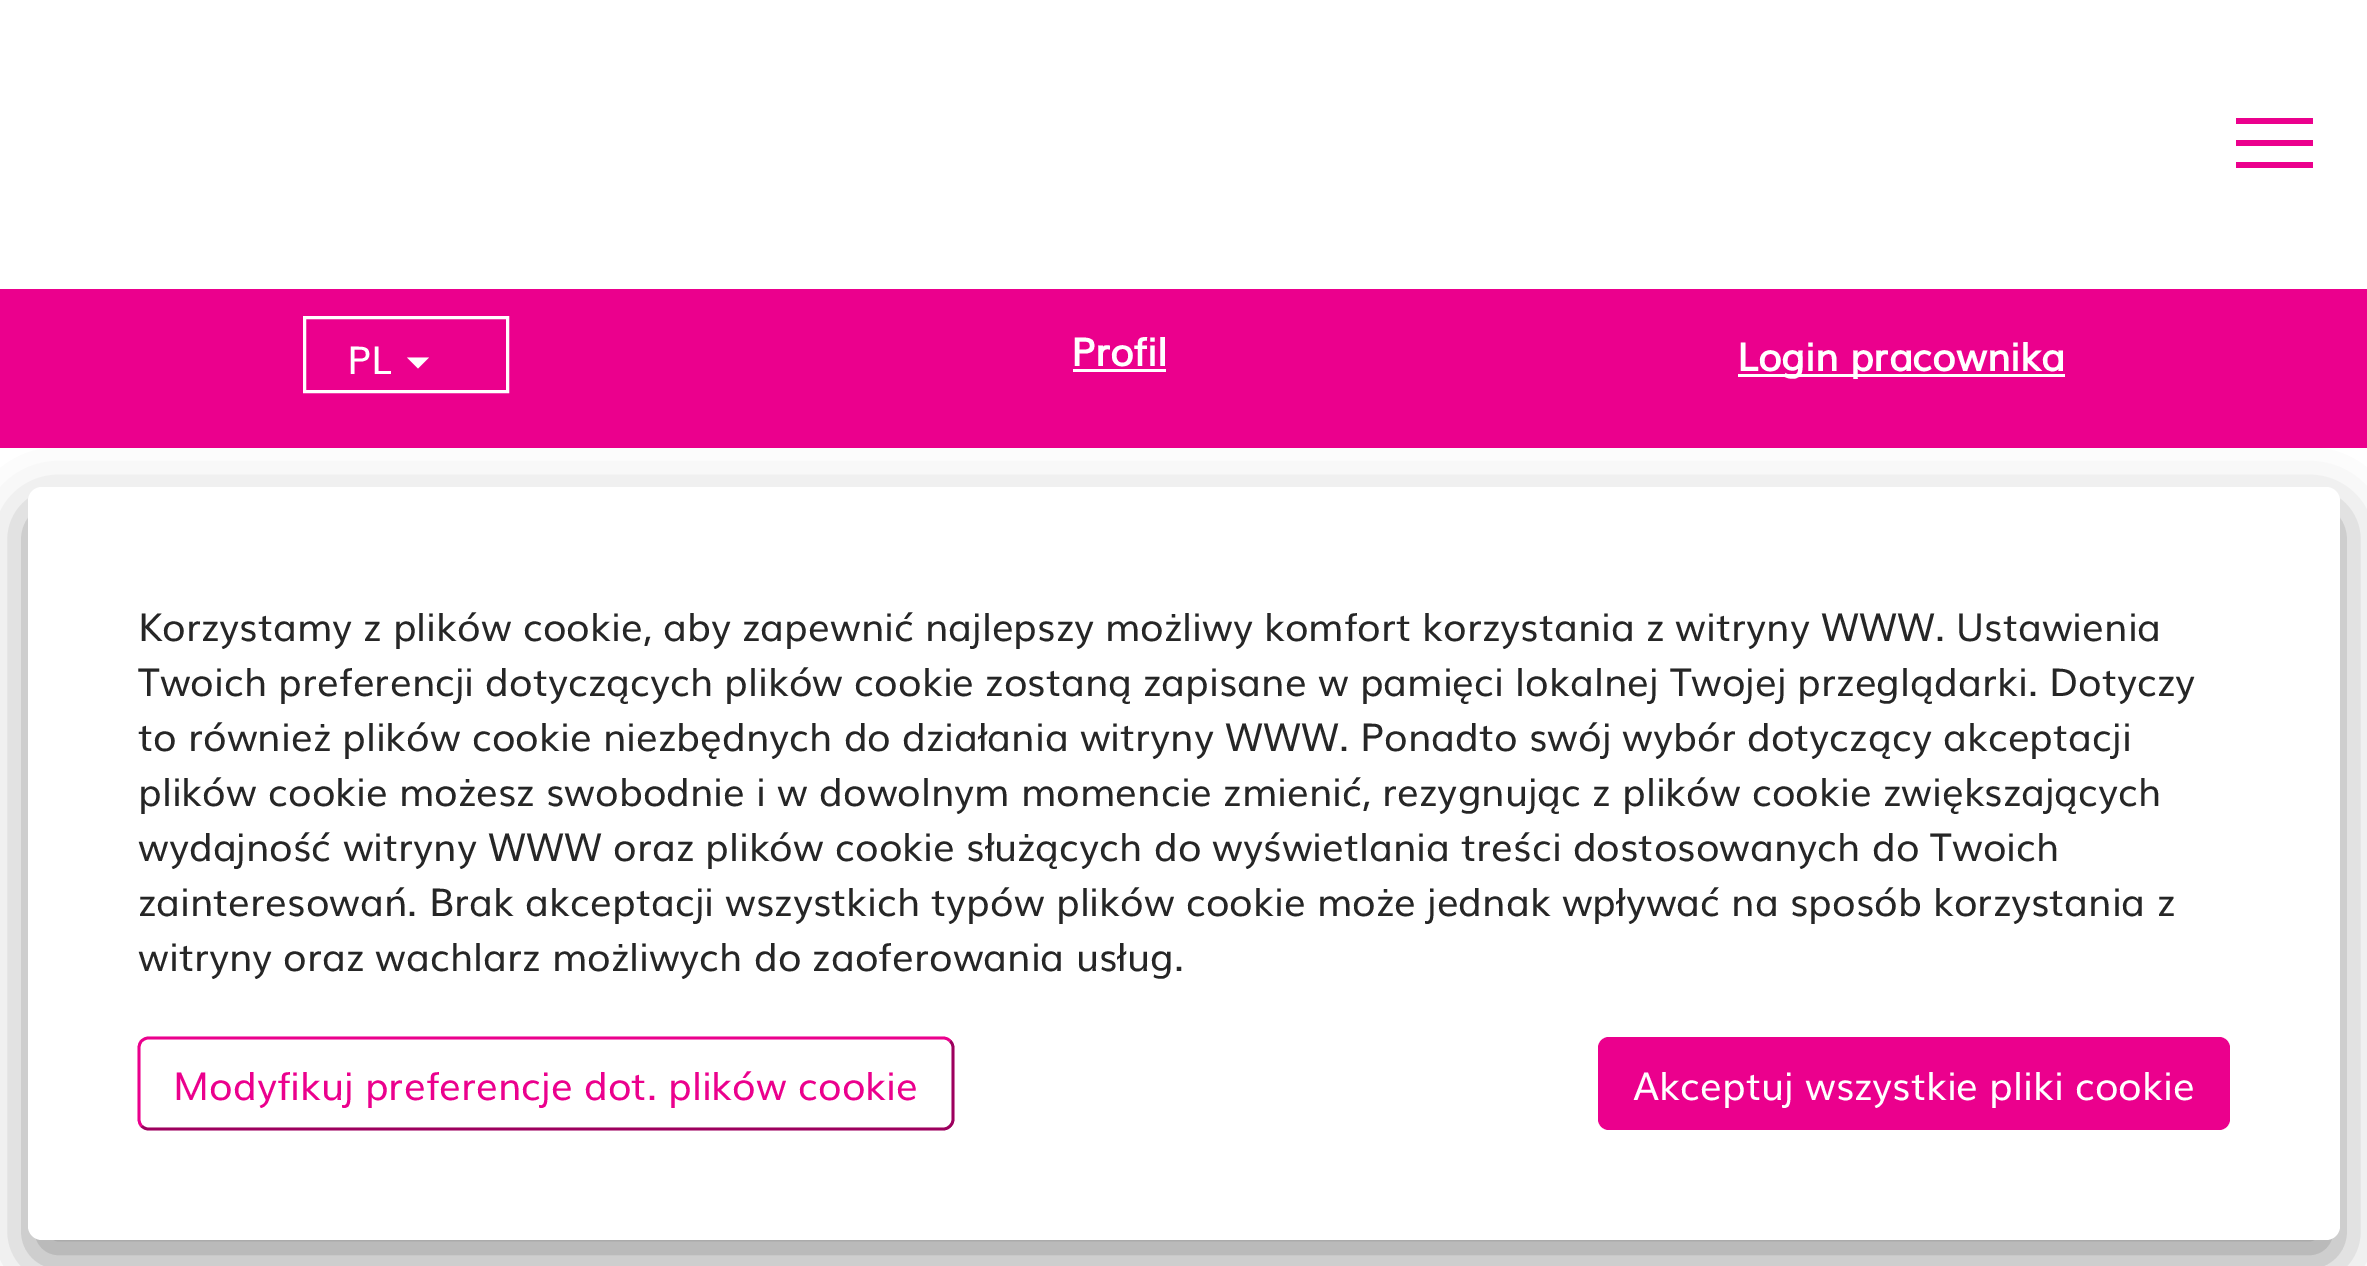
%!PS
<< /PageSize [2367 1266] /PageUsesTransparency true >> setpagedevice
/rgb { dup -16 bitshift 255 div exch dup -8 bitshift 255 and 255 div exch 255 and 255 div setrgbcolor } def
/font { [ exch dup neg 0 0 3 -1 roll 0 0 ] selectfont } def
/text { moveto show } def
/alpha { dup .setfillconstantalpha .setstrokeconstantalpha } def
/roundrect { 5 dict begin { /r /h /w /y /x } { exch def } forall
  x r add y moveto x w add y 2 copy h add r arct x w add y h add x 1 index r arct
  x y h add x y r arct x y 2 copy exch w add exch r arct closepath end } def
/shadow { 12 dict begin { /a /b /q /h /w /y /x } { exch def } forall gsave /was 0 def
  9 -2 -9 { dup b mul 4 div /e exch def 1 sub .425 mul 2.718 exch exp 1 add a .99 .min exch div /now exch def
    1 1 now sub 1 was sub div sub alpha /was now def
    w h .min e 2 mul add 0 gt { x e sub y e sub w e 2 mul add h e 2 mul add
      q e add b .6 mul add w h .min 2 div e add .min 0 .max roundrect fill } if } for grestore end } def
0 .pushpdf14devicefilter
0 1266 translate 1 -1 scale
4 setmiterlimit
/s1 { /Muli-Regular 38.5 font 16#FFFFFF rgb } def
/s2 { /Muli-Bold 38.5 font 16#FFFFFF rgb } def
/s3 { /Muli-Regular 38.5 font 16#262626 rgb } def
/s4 { /Muli-Regular 38.5 font 16#EB008D rgb } def
16#FFFFFF rgb
0 0 2367 1266 rectfill
16#EB008D rgb
2236 118 77 6 rectfill
2236 140 77 6 rectfill
2236 162 77 6 rectfill
0 289 2367 159 rectfill
16#FFFFFF rgb
3 setlinewidth
304.5 317.5 203 74 rectstroke
s1
(PL) 347 374 text
407 357.5 moveto 429 357.5 lineto 418 368.5 lineto closepath fill
s2
(Profil) 1071 366 text
1073 369 93 3 rectfill
1738 374 327 3 rectfill
(Login pracownika) 1737 371 text
16#000000 rgb
28 509 2312 753 14 27.5 0.39 shadow
16#FFFFFF rgb
28 487 2312 753 14 roundrect fill
s3
(Korzystamy z plików cookie, aby zapewnić najlepszy możliwy komfort korzystania z witryny WWW. Ustawienia) 138 641 text
(Twoich preferencji dotyczących plików cookie zostaną zapisane w pamięci lokalnej Twojej przeglądarki. Dotyczy) 138 696 text
(to również plików cookie niezbędnych do działania witryny WWW. Ponadto swój wybór dotyczący akceptacji) 138 751 text
(plików cookie możesz swobodnie i w dowolnym momencie zmienić, rezygnując z plików cookie zwiększających) 138 806 text
(wydajność witryny WWW oraz plików cookie służących do wyświetlania treści dostosowanych do Twoich) 138 861 text
(zainteresowań. Brak akceptacji wszystkich typów plików cookie może jednak wpływać na sposób korzystania z) 138 916 text
(witryny oraz wachlarz możliwych do zaoferowania usług.) 138 971 text
16#9D005E rgb
2.8 setlinewidth
950 1041 moveto 952 1042.5 953 1045 953 1048 curveto 953 1119 lineto 953 1122 952 1124.5 950 1126 curveto 948.5 1128 946 1129 943 1129 curveto 148.5 1129 lineto 146 1129 143.5 1128 141.5 1126 curveto stroke
16#EB008D rgb
141.5 1126 moveto 140 1124.5 139 1122 139 1119 curveto 139 1048 lineto 139 1045 140 1042.5 141.5 1041 curveto 143.5 1039 146 1038 148.5 1038 curveto 943 1038 lineto 946 1038 948.5 1039 950 1041 curveto stroke
(Modyfikuj preferencje dot. plików cookie) 173 1100 text
1598 1037 632 93 11 roundrect fill
s1
(Akceptuj wszystkie pliki cookie) 1633 1100 text
.poppdf14devicefilter showpage
